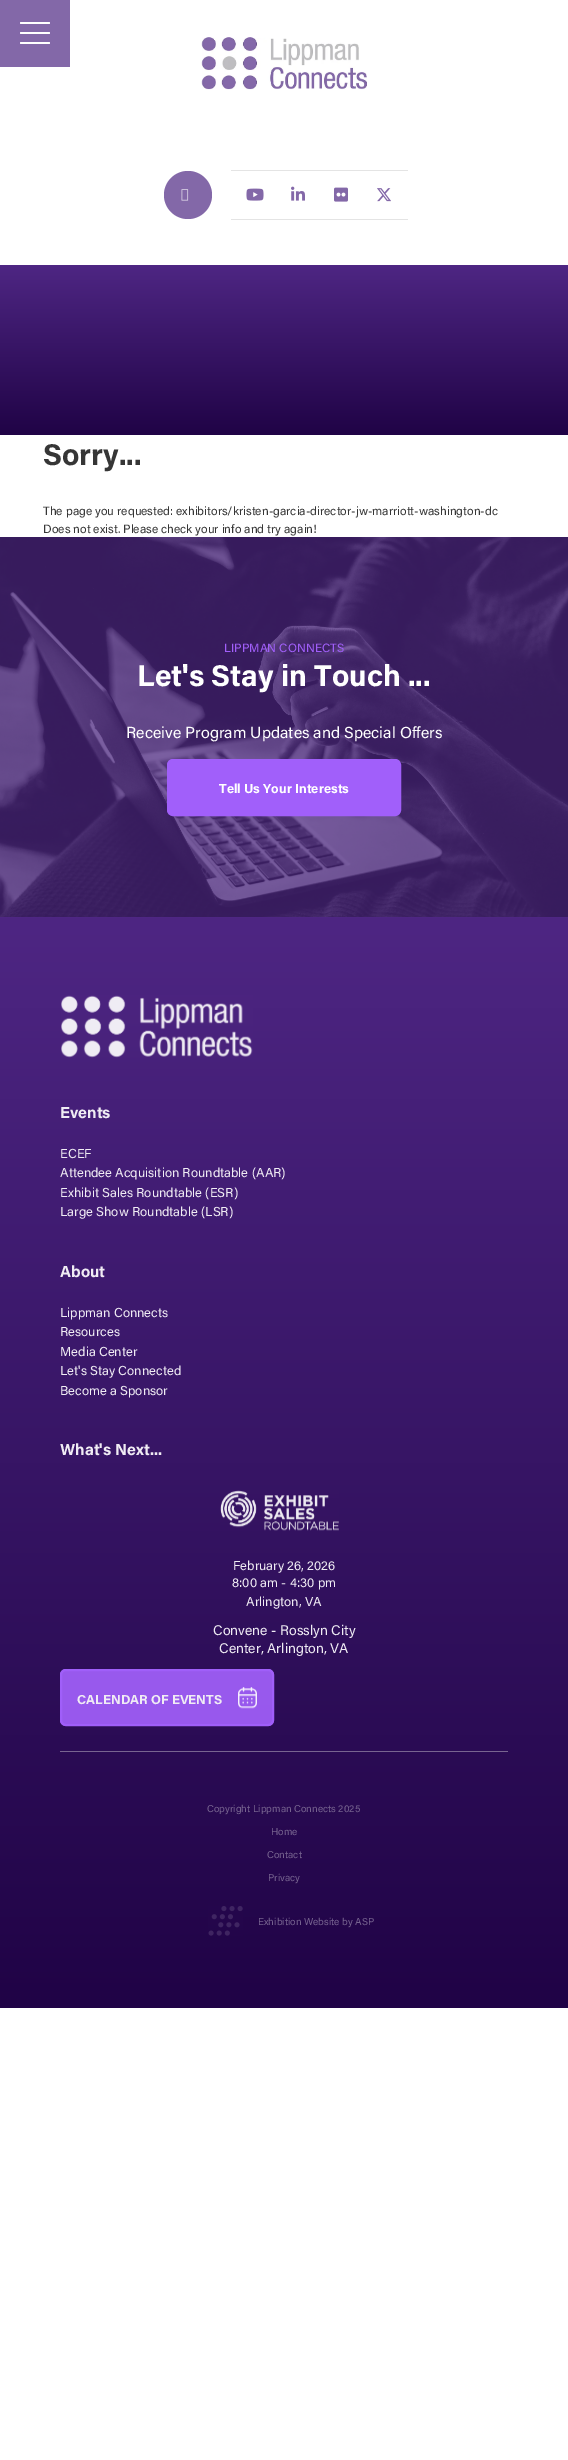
%!PS
<< /PageSize [568 2460] /PageUsesTransparency true >> setpagedevice
/rgb { dup -16 bitshift 255 div exch dup -8 bitshift 255 and 255 div exch 255 and 255 div setrgbcolor } def
/font { [ exch dup neg 0 0 3 -1 roll 0 0 ] selectfont } def
/text { moveto show } def
/alpha { dup .setfillconstantalpha .setstrokeconstantalpha } def
/circle { newpath 0 360 arc closepath } def
/roundrect { 5 dict begin { /r /h /w /y /x } { exch def } forall
  x r add y moveto x w add y 2 copy h add r arct x w add y h add x 1 index r arct
  x y h add x y r arct x y 2 copy exch w add exch r arct closepath end } def
/picture { 5 dict begin { /h /w /y /x /name } { exch def } forall
  gsave x y translate w h scale
  w h 8 [w 0 0 h 0 0] name (r) file false 3 colorimage grestore end } def
0 .pushpdf14devicefilter
0 2460 translate 1 -1 scale
4 setmiterlimit
/s1 { /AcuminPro-Bold 30 font 16#363636 rgb } def
/s2 { /AcuminPro-Regular 12 font 16#363636 rgb } def
/s3 { /AcuminPro-Regular 12 font 16#A15FFA rgb } def
/s4 { /AcuminPro-Bold 30 font 16#FFFFFF rgb } def
/s5 { /AcuminPro-Regular 16 font 16#FFFFFF rgb } def
/s6 { /AcuminPro-Bold 13 font 16#FFFFFF rgb } def
/s7 { /AcuminPro-Bold 16 font 16#F0ECF4 rgb } def
/s8 { /AcuminPro-Regular 13 font 16#F0ECF4 rgb } def
/s9 { /AcuminPro-Regular 14 font 16#F0ECF4 rgb } def
/s10 { /AcuminPro-Bold 13 font 16#F0ECF4 rgb } def
/s11 { /AcuminPro-Regular 10 font 16#76638F rgb } def
16#FFFFFF rgb
0 0 568 2460 rectfill
16#8368A8 rgb
0 0 70 67 rectfill
16#FFFFFF rgb
20 32 30 2 1 roundrect fill
20 22 30 2 1 roundrect fill
20 42 30 2 1 roundrect fill
(pic1.raw) 201 37 166 53 picture
16#8368A8 rgb
188 195 24 circle fill
(pic2.raw) 181 189 8 12 picture
16#E4E4E4 rgb
231 170 177 1 rectfill
231 219 177 1 rectfill
(pic3.raw) 246 188 18 13 picture
(pic4.raw) 291 186 14 15 picture
(pic5.raw) 334 187 14 15 picture
(pic6.raw) 377 188 14 14 picture
gsave 0 265 moveto 568 265 lineto 568 435 lineto 0 435 lineto closepath clip newpath
<< /ShadingType 2 /ColorSpace /DeviceRGB /Coords [284 435 284 265] /Extend [true true] /Function << /FunctionType 2 /Domain [0 1] /C0 [0.125 0.012 0.275] /C1 [0.306 0.149 0.514] /N 1 >> >> shfill grestore
s1
(Sorry...) 43 465 text
s2
(The page you requested: exhibitors/kristen-garcia-director-jw-marriott-washington-dc) 43 515 text
(Does not exist. Please check your info and try again!) 43 533 text
(pic7.raw) 0 537 568 380 picture
s3
(LIPPMAN CONNECTS) 224 652 text
s4
(Let's Stay in Touch ...) 137 686 text
s5
(Receive Program Updates and Special Offers) 126 738 text
16#A15FFA rgb
168 760 232 55 5 roundrect gsave fill grestore
2 setlinewidth
stroke
s6
(Tell Us Your Interests) 219 793 text
gsave 0 917 moveto 568 917 lineto 568 2008 lineto 0 2008 lineto closepath clip newpath
<< /ShadingType 2 /ColorSpace /DeviceRGB /Coords [284 2008 284 917] /Extend [true true] /Function << /FunctionType 2 /Domain [0 1] /C0 [0.125 0.012 0.275] /C1 [0.306 0.149 0.514] /N 1 >> >> shfill grestore
(pic8.raw) 61 995 192 63 picture
s7
(Events) 60 1118 text
s8
(ECEF) 60 1158 text
(Attendee Acquisition Roundtable \(AAR\)) 60 1177 text
(Exhibit Sales Roundtable \(ESR\)) 60 1197 text
(Large Show Roundtable \(LSR\)) 60 1216 text
s7
(About) 60 1277 text
s8
(Lippman Connects) 60 1317 text
(Resources) 60 1336 text
(Media Center) 60 1356 text
(Let's Stay Connected) 60 1375 text
(Become a Sponsor) 60 1395 text
s7
(What's Next...) 60 1455 text
(pic9.raw) 220 1490 119 41 picture
s8
(February 26, 2026) 233 1570 text
(8:00 am - 4:30 pm) 232 1587 text
(Arlington, VA) 246 1606 text
s9
(Convene - Rosslyn City) 213 1635 text
(Center, Arlington, VA) 219 1653 text
0.92 alpha
16#A15FFA rgb
60 1669 214 57 6 roundrect fill
61 1670 212 55 5 roundrect stroke
1 alpha
s10
(CALENDAR OF EVENTS) 77 1704 text
(pic10.raw) 238 1687 19 22 picture
16#786590 rgb
60 1751 448 1 rectfill
s11
(Copyright Lippman Connects 2025) 207 1812 text
(Home) 271 1835 text
(Contact) 267 1858 text
(Privacy) 268 1881 text
(pic11.raw) 208 1906 35 30 picture
(Exhibition Website by ASP) 258 1925 text
.poppdf14devicefilter showpage
